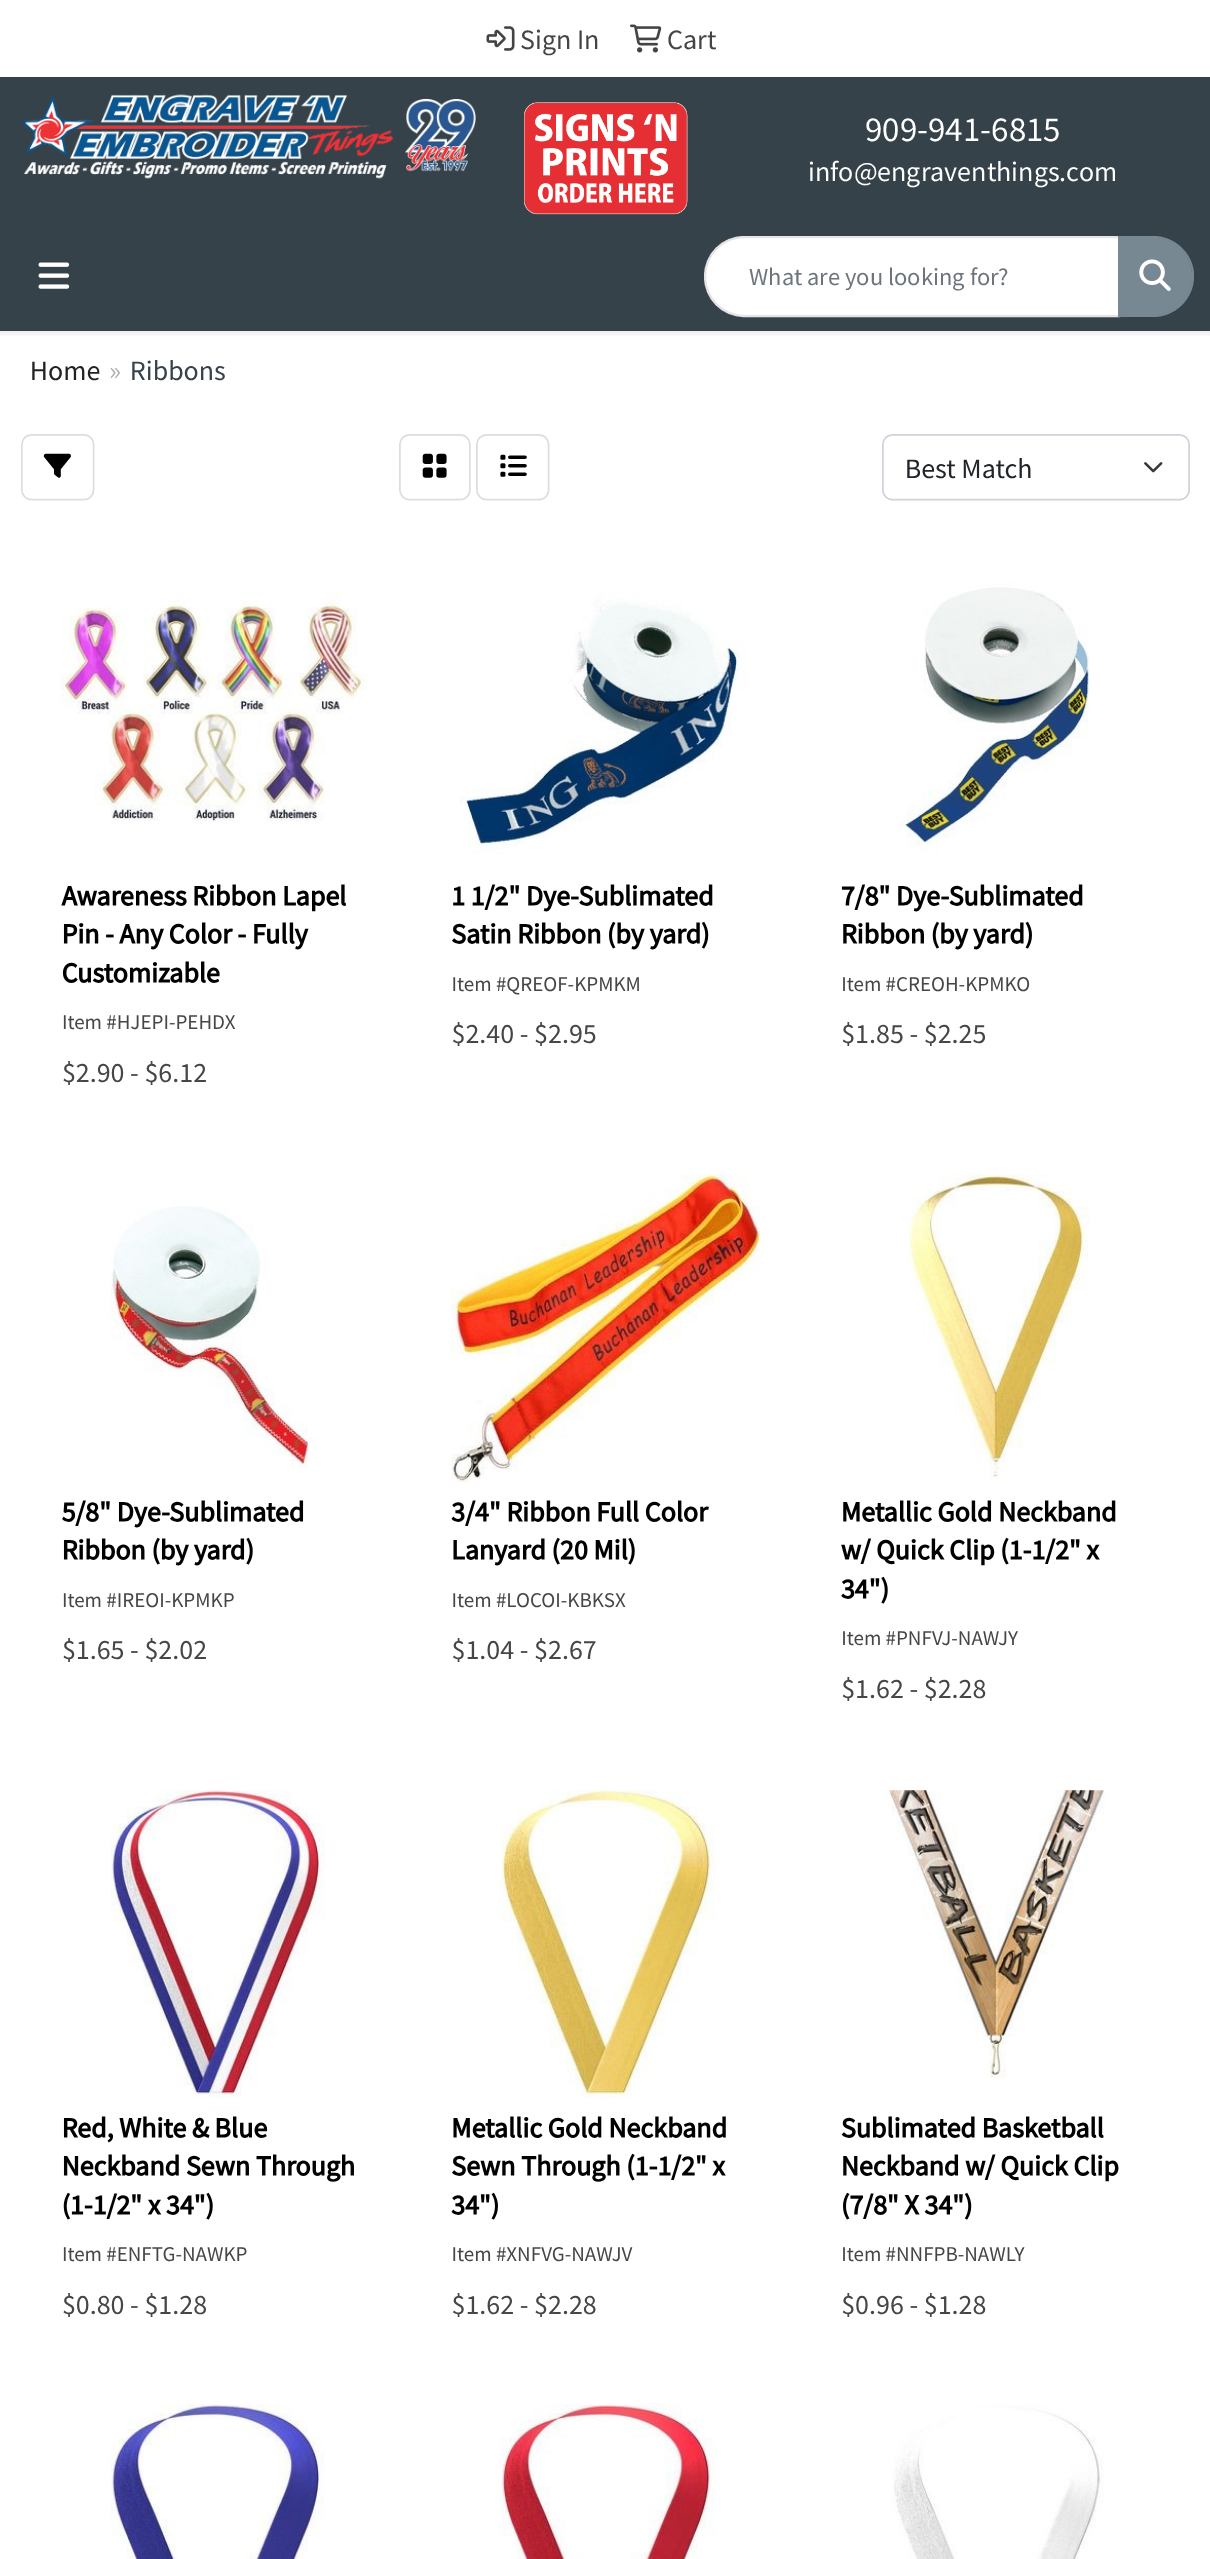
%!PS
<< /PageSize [1210 2559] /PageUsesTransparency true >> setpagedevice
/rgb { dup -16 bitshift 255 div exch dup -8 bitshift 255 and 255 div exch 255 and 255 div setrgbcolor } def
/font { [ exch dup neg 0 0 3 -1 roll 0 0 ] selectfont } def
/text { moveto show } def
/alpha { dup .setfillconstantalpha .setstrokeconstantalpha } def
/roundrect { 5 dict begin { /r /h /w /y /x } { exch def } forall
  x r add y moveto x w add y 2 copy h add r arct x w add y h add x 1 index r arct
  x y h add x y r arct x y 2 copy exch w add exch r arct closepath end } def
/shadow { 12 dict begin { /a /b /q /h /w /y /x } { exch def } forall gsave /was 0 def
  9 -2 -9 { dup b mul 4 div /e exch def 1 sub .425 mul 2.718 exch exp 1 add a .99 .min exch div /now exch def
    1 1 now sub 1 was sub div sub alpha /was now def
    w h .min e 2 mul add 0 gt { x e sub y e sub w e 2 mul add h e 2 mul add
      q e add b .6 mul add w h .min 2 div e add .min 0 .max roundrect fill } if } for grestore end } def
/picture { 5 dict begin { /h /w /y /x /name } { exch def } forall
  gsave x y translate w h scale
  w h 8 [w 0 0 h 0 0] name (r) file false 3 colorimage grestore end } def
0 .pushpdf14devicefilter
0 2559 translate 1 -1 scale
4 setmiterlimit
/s1 { /SourceSansPro-Regular 28 font 16#444444 rgb } def
/s2 { /SourceSansPro-Regular 35 font 16#FFFFFF rgb } def
/s3 { /SourceSansPro-Regular 28 font 16#FFFFFF rgb } def
/s4 { /SourceSansPro-Regular 24.5 font 16#6C757D rgb } def
16#FFFFFF rgb
0 0 1210 2559 rectfill
16#36424A rgb
0 77 1210 254 rectfill
(pic1.raw) 486 26 29 25 picture
s1
(Sign In) 520 49 text
(pic2.raw) 630 24 32 29 picture
(Cart) 667 49 text
(pic3.raw) 21 94 455 85 picture
(pic4.raw) 524 102 164 113 picture
s2
(909-941-6815) 865 141 text
s3
(info@engraventhings.com) 808 181 text
gsave
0 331 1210 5 rectclip
16#000000 rgb
0 226 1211 108 0 3.5 0.07 shadow
grestore
(pic5.raw) 38 262 32 27 picture
744.5 237 moveto 1119 237 lineto 1119 316 lineto 744.5 316 lineto 722.5 316 705 298.5 705 276.5 curveto 705 254.5 722.5 237 744.5 237 curveto closepath gsave fill grestore
16#E4E4E4 rgb
2 setlinewidth
stroke
s4
(What are you looking for?) 749 285 text
16#788892 rgb
1118 238 moveto 1153.5 238 lineto 1175 238 1192 255 1192 276.5 curveto 1192 298 1175 315 1153.5 315 curveto 1118 315 lineto closepath fill
1118 236 moveto 1153 236 lineto 1175 236 1194 254 1194 276 curveto 1194 299 1175 317 1153 317 curveto 1118 317 lineto closepath 1118 238 moveto 1153 238 lineto 1175 238 1192 255 1192 276 curveto 1192 298 1175 315 1153 315 curveto 1118 315 lineto closepath eofill
(pic6.raw) 1139 259 32 32 picture
(pic7.raw) 21 360 1169 2199 picture
.poppdf14devicefilter showpage
